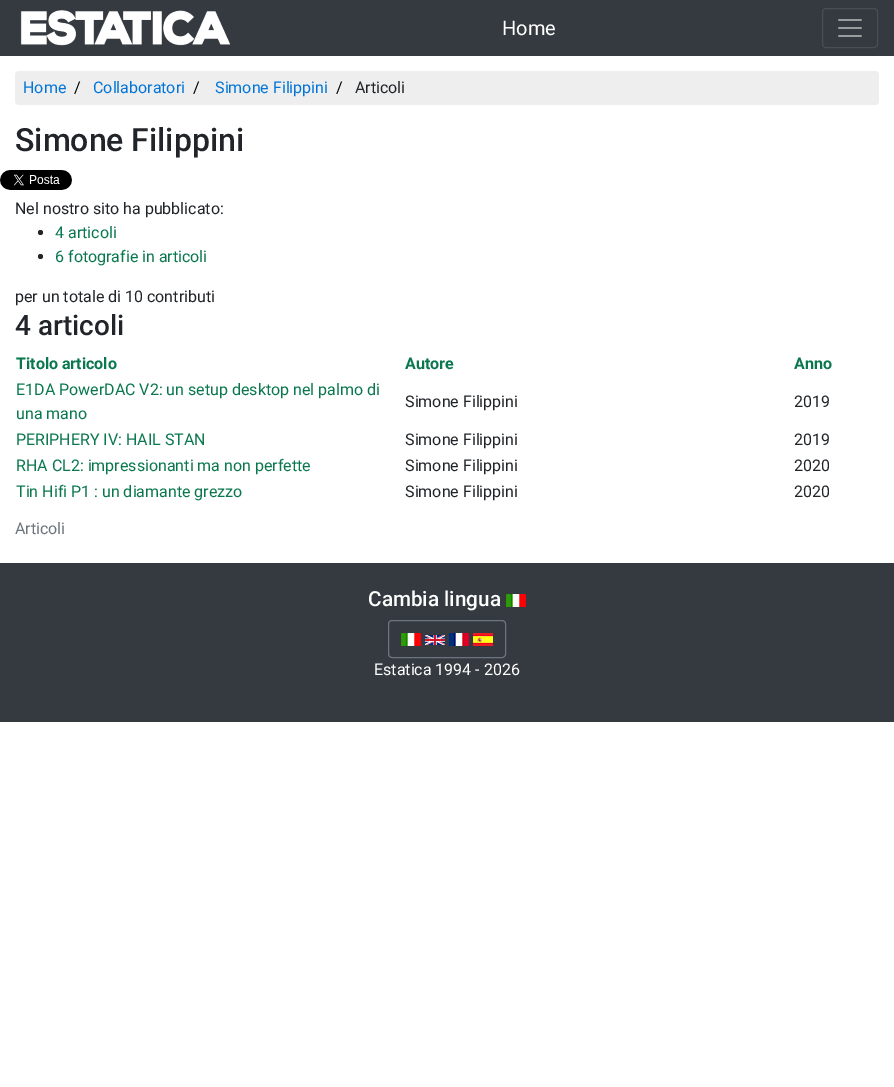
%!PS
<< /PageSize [894 1087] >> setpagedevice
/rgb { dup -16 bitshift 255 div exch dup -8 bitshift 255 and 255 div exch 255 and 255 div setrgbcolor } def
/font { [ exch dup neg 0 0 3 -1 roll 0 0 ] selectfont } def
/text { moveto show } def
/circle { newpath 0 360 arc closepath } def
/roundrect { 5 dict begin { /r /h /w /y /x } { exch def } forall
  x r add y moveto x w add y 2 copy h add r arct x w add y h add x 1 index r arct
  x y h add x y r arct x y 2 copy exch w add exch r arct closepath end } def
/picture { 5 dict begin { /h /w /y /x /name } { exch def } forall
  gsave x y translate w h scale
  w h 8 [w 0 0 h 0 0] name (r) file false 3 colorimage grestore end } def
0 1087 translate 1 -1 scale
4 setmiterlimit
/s1 { /Roboto-Regular 20 font 16#FFFFFF rgb } def
/s2 { /Roboto-Regular 16 font 16#0275D8 rgb } def
/s3 { /Roboto-Regular 16 font 16#000000 rgb } def
/s4 { /Roboto-Regular 16 font 16#212529 rgb } def
/s5 { /Roboto-Medium 32 font 16#212529 rgb } def
/s6 { /Roboto-Regular 16 font 16#0A774F rgb } def
/s7 { /Roboto-Medium 28 font 16#212529 rgb } def
/s8 { /Roboto-Bold 16 font 16#0A774F rgb } def
/s9 { /Roboto-Regular 16 font 16#6C757D rgb } def
/s10 { /Roboto-Medium 20.75 font 16#FFFFFF rgb } def
/s11 { /Roboto-Regular 16 font 16#FFFFFF rgb } def
16#FFFFFF rgb
0 0 894 1087 rectfill
16#343A40 rgb
0 0 894 56 rectfill
(pic1.raw) 20 10 211 37 picture
s1
(Home) 502 35 text
16#484E53 rgb
822.5 8.5 55 39 3.5 roundrect stroke
(pic2.raw) 838 19 24 18 picture
16#EEEEEE rgb
15 71 864 34 4 roundrect fill
s2
(Home) 23 93 text
s3
(/) 74 93 text
s2
(Collaboratori) 93 93 text
s3
(/) 193 93 text
s2
(Simone Filippini) 215 93 text
s3
(/) 336 93 text
s4
(Articoli) 355 93 text
s5
(Simone Filippini) 15 151 text
(pic3.raw) 0 170 72 20 picture
s4
(Nel nostro sito ha pubblicato:) 15 214 text
40.5 232.5 2.5 circle fill
s6
(4 articoli) 55 238 text
16#212529 rgb
40.5 256.5 2.5 circle fill
s6
(6 fotografie in articoli) 55 262 text
s4
(per un totale di 10 contributi) 15 302 text
s7
(4 articoli) 15 335 text
s8
(Titolo articolo) 16 369 text
(Autore) 405 369 text
(Anno) 794 369 text
s6
(E1DA PowerDAC V2: un setup desktop nel palmo di) 16 395 text
(una mano) 16 419 text
s4
(Simone Filippini) 405 407 text
(2019) 794 407 text
s6
(PERIPHERY IV: HAIL STAN) 16 445 text
s4
(Simone Filippini) 405 445 text
(2019) 794 445 text
s6
(RHA CL2: impressionanti ma non perfette) 16 471 text
s4
(Simone Filippini) 405 471 text
(2020) 794 471 text
s6
(Tin Hifi P1 : un diamante grezzo) 16 497 text
s4
(Simone Filippini) 405 497 text
(2020) 794 497 text
s9
(Articoli) 15 534 text
16#343A40 rgb
0 563 894 159 rectfill
s10
(Cambia lingua) 368 606 text
(pic4.raw) 506 594 20 13 picture
16#6C757D rgb
388.5 620.5 117 37 3.5 roundrect stroke
(pic4.raw) 401 633 20 13 picture
(pic5.raw) 425 635 20 10 picture
(pic6.raw) 449 633 20 13 picture
(pic7.raw) 473 633 20 13 picture
s11
(Estatica 1994 - 2026) 374 675 text
showpage
